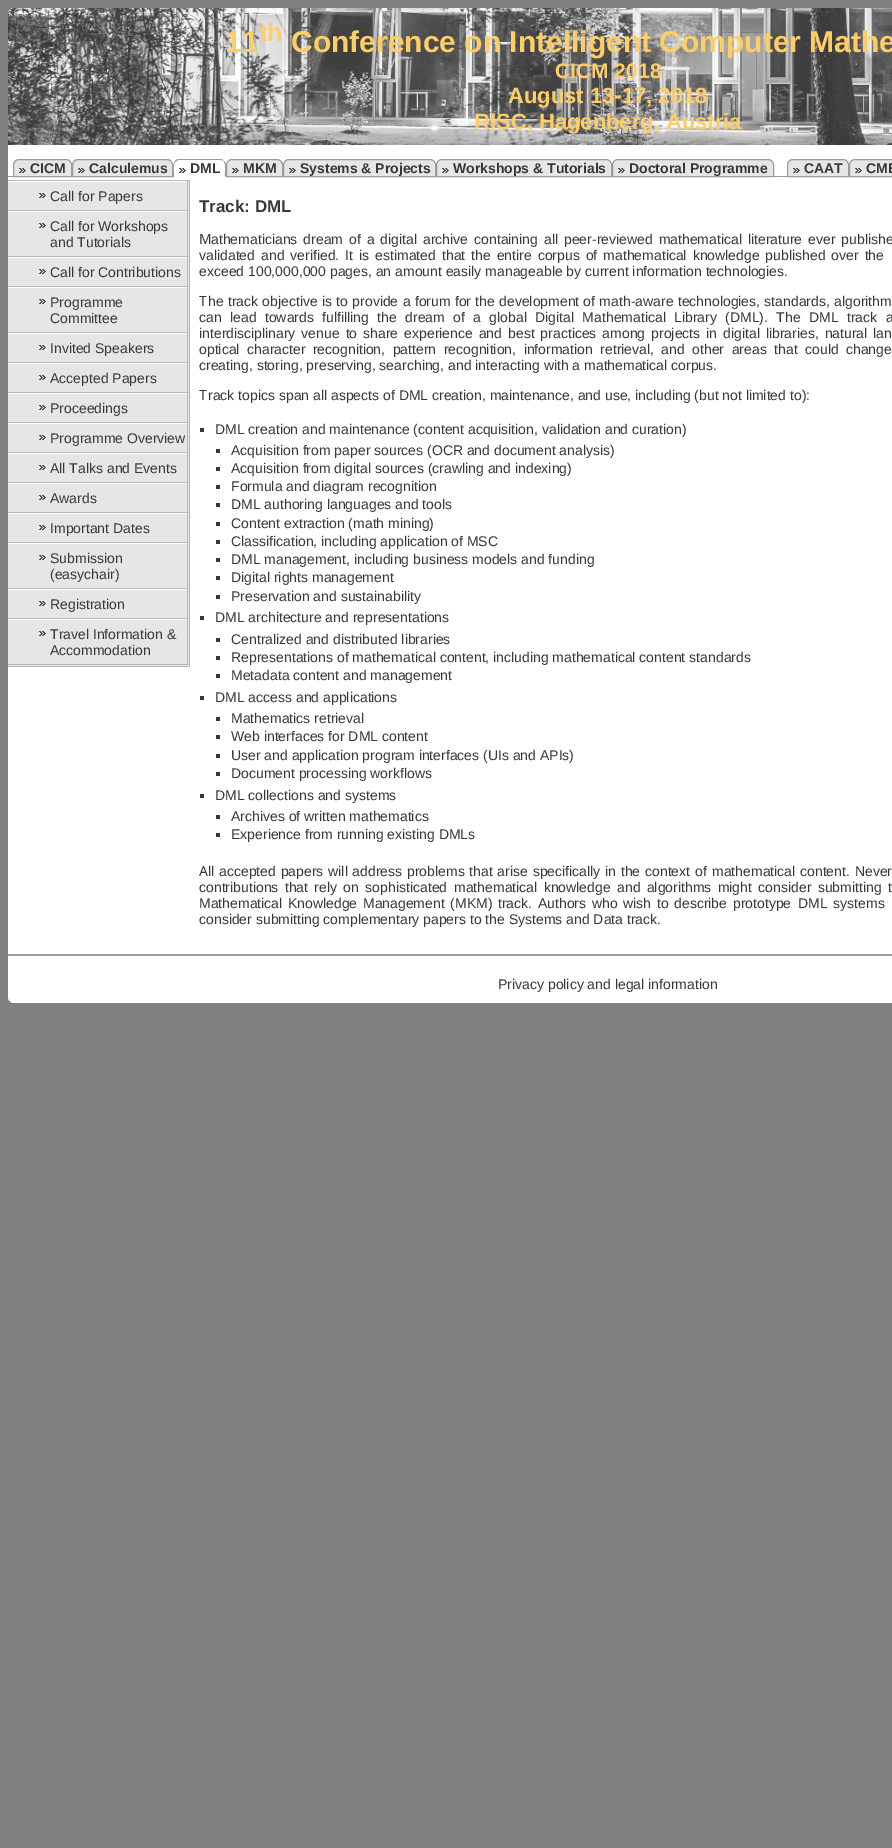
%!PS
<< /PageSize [892 1848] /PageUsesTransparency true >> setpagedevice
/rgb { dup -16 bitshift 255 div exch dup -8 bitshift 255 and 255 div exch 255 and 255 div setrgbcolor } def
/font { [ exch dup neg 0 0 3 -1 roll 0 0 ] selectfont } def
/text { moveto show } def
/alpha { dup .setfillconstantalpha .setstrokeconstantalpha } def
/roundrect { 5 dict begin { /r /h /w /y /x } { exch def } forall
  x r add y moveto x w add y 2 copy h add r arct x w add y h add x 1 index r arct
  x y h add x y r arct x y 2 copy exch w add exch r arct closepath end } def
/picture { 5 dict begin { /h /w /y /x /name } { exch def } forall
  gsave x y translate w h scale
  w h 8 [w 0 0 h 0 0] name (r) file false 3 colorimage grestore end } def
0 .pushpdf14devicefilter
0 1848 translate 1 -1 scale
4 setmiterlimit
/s1 { /LiberationSans-Bold 30 font 16#FECD66 rgb } def
/s2 { /LiberationSans-Bold 25 font 16#FECD66 rgb } def
/s3 { /LiberationSans-Bold 21 font 16#FECD66 rgb } def
/s4 { /LiberationSans-Bold 22 font 16#FECD66 rgb } def
/s5 { /LiberationSans-Bold 14 font 16#373737 rgb } def
/s6 { /LiberationSans-Regular 14 font 16#373737 rgb } def
/s7 { /LiberationSans-Bold 17 font 16#373737 rgb } def
/s8 { /NotoSans-Regular 14 font 16#373737 rgb } def
16#808080 rgb
0 0 892 1848 rectfill
16#FFFFFF rgb
8 8 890 995 6 roundrect fill
0.8 alpha
14 8 moveto 892 8 lineto 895.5 8 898 10.5 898 14 curveto 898 145 lineto 8 145 lineto 8 14 lineto 8 10.5 10.5 8 14 8 curveto closepath fill
1 alpha
(pic1.raw) 8 8 884 137 picture
s1
(11) 225 52 text
s2
(th) 259 41 text
s1
(Conference on Intelligent Computer Mathe) 291 52 text
s3
(CICM 2018) 555 78 text
s4
(August 13-17, 2018) 508 103 text
(RISC, Hagenberg, Austria) 474 129 text
16#9C9C9C rgb
8 176 779 1 rectfill
16#E6E6E6 rgb
19 159.5 moveto 66 159.5 lineto 69 159.5 71.5 162 71.5 165 curveto 71.5 176.5 lineto 13.5 176.5 lineto 13.5 165 lineto 13.5 162 16 159.5 19 159.5 curveto closepath gsave fill grestore
16#9C9C9C rgb
stroke
(pic2.raw) 19 168 7 5 picture
s5
(CICM) 30 173 text
16#E6E6E6 rgb
78 159.5 moveto 167 159.5 lineto 170 159.5 172.5 162 172.5 165 curveto 172.5 176.5 lineto 72.5 176.5 lineto 72.5 165 lineto 72.5 162 75 159.5 78 159.5 curveto closepath gsave fill grestore
16#9C9C9C rgb
stroke
(pic2.raw) 78 168 7 5 picture
s5
(Calculemus) 89 173 text
16#9C9C9C rgb
179 159 moveto 177 159 176 160 175 161 curveto 176 162 lineto 176 161 177 160 179 160 curveto 220 160 lineto 222 160 223 160 224 161 curveto 223 160 222 159 220 159 curveto closepath fill
226 178 moveto 226 165 lineto 226 163.5 225 162 224 161 curveto 223.5 161.5 lineto 226.5 164.5 224.5 172 225 176 curveto closepath fill
16#FFFFFF rgb
226 178 moveto 225 176 lineto 174 176 lineto 173 178 lineto closepath fill
16#9C9C9C rgb
173 178 moveto 173 173.5 172 165 175 161 curveto 175.5 161.5 lineto 172.5 165 174 171.5 174 176 curveto closepath fill
(pic3.raw) 179 168 7 5 picture
s5
(DML) 190 173 text
16#E6E6E6 rgb
232 159.5 moveto 277 159.5 lineto 280 159.5 282.5 162 282.5 165 curveto 282.5 176.5 lineto 226.5 176.5 lineto 226.5 165 lineto 226.5 162 229 159.5 232 159.5 curveto closepath gsave fill grestore
16#9C9C9C rgb
stroke
(pic2.raw) 232 168 7 5 picture
s5
(MKM) 243 173 text
16#E6E6E6 rgb
289 159.5 moveto 430 159.5 lineto 433 159.5 435.5 162 435.5 165 curveto 435.5 176.5 lineto 283.5 176.5 lineto 283.5 165 lineto 283.5 162 286 159.5 289 159.5 curveto closepath gsave fill grestore
16#9C9C9C rgb
stroke
(pic2.raw) 289 168 7 5 picture
s5
(Systems & Projects) 300 173 text
16#E6E6E6 rgb
442 159.5 moveto 606 159.5 lineto 609 159.5 611.5 162 611.5 165 curveto 611.5 176.5 lineto 436.5 176.5 lineto 436.5 165 lineto 436.5 162 439 159.5 442 159.5 curveto closepath gsave fill grestore
16#9C9C9C rgb
stroke
(pic2.raw) 442 168 7 5 picture
s5
(Workshops & Tutorials) 453 173 text
16#E6E6E6 rgb
618 159.5 moveto 768 159.5 lineto 771 159.5 773.5 162 773.5 165 curveto 773.5 176.5 lineto 612.5 176.5 lineto 612.5 165 lineto 612.5 162 615 159.5 618 159.5 curveto closepath gsave fill grestore
16#9C9C9C rgb
stroke
(pic2.raw) 618 168 7 5 picture
s5
(Doctoral Programme) 629 173 text
16#E6E6E6 rgb
793 159.5 moveto 843 159.5 lineto 846 159.5 848.5 162 848.5 165 curveto 848.5 176.5 lineto 787.5 176.5 lineto 787.5 165 lineto 787.5 162 790 159.5 793 159.5 curveto closepath gsave fill grestore
16#9C9C9C rgb
stroke
(pic2.raw) 793 168 7 5 picture
s5
(CAAT) 804 173 text
16#E6E6E6 rgb
855 159.5 moveto 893 159.5 lineto 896 159.5 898.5 162 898.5 165 curveto 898.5 176.5 lineto 849.5 176.5 lineto 849.5 165 lineto 849.5 162 852 159.5 855 159.5 curveto closepath gsave fill grestore
16#9C9C9C rgb
stroke
(pic2.raw) 855 168 7 5 picture
s5
(CME) 866 173 text
16#E6E6E6 rgb
8 181 181 485 rectfill
16#B7B7B7 rgb
8 180 182 1 rectfill
189 180 1 487 rectfill
8 666 182 1 rectfill
(pic2.raw) 39 193 7 5 picture
16#FFFFFF rgb
8 181 180 1 rectfill
16#B7B7B7 rgb
187 181 1 30 rectfill
8 210 180 1 rectfill
s6
(Call for Papers) 50 201 text
(pic2.raw) 39 223 7 5 picture
16#FFFFFF rgb
8 211 180 1 rectfill
16#B7B7B7 rgb
187 211 1 46 rectfill
8 256 180 1 rectfill
s6
(Call for Workshops) 50 231 text
(and Tutorials) 50 247 text
(pic2.raw) 39 269 7 5 picture
16#FFFFFF rgb
8 257 180 1 rectfill
16#B7B7B7 rgb
187 257 1 30 rectfill
8 286 180 1 rectfill
s6
(Call for Contributions) 50 277 text
(pic2.raw) 39 299 7 5 picture
16#FFFFFF rgb
8 287 180 1 rectfill
16#B7B7B7 rgb
187 287 1 46 rectfill
8 332 180 1 rectfill
s6
(Programme) 50 307 text
(Committee) 50 323 text
(pic2.raw) 39 345 7 5 picture
16#FFFFFF rgb
8 333 180 1 rectfill
16#B7B7B7 rgb
187 333 1 30 rectfill
8 362 180 1 rectfill
s6
(Invited Speakers) 50 353 text
(pic2.raw) 39 375 7 5 picture
16#FFFFFF rgb
8 363 180 1 rectfill
16#B7B7B7 rgb
187 363 1 30 rectfill
8 392 180 1 rectfill
s6
(Accepted Papers) 50 383 text
(pic2.raw) 39 405 7 5 picture
16#FFFFFF rgb
8 393 180 1 rectfill
16#B7B7B7 rgb
187 393 1 30 rectfill
8 422 180 1 rectfill
s6
(Proceedings) 50 413 text
(pic2.raw) 39 435 7 5 picture
16#FFFFFF rgb
8 423 180 1 rectfill
16#B7B7B7 rgb
187 423 1 30 rectfill
8 452 180 1 rectfill
s6
(Programme Overview) 50 443 text
(pic2.raw) 39 465 7 5 picture
16#FFFFFF rgb
8 453 180 1 rectfill
16#B7B7B7 rgb
187 453 1 30 rectfill
8 482 180 1 rectfill
s6
(All Talks and Events) 50 473 text
(pic2.raw) 39 495 7 5 picture
16#FFFFFF rgb
8 483 180 1 rectfill
16#B7B7B7 rgb
187 483 1 30 rectfill
8 512 180 1 rectfill
s6
(Awards) 50 503 text
(pic2.raw) 39 525 7 5 picture
16#FFFFFF rgb
8 513 180 1 rectfill
16#B7B7B7 rgb
187 513 1 30 rectfill
8 542 180 1 rectfill
s6
(Important Dates) 50 533 text
(pic2.raw) 39 555 7 5 picture
16#FFFFFF rgb
8 543 180 1 rectfill
16#B7B7B7 rgb
187 543 1 46 rectfill
8 588 180 1 rectfill
s6
(Submission) 50 563 text
(\(easychair\)) 50 579 text
(pic2.raw) 39 601 7 5 picture
16#FFFFFF rgb
8 589 180 1 rectfill
16#B7B7B7 rgb
187 589 1 30 rectfill
8 618 180 1 rectfill
s6
(Registration) 50 609 text
(pic2.raw) 39 631 7 5 picture
16#FFFFFF rgb
8 619 180 1 rectfill
16#B7B7B7 rgb
187 619 1 46 rectfill
8 664 180 1 rectfill
s6
(Travel Information &) 50 639 text
(Accommodation) 50 655 text
s7
(Track: DML) 199 212 text
s8
(M) 199 244 text
/LiberationSans-Regular 14 font
211 244 moveto 2.1 0 32 (athematicians dream of a digital archive containing all peer-reviewed mathematical literature ever publishe) widthshow
199 260 moveto 2.1 0 32 (validated and verified. It is estimated that the entire corpus of mathematical knowledge published over the) widthshow
(exceed 100,000,000 pages, an amount easily manageable by current information technologies.) 199 276 text
s8
(T) 199 306 text
/LiberationSans-Regular 14 font
208 306 moveto 0.4 0 32 (he track objective is to provide a forum for the development of math-aware technologies, standards, algorithm) widthshow
199 322 moveto 4.5 0 32 (can lead towards fulfilling the dream of a global Digital Mathematical Library \(DML\). The DML track a) widthshow
199 338 moveto 2.1 0 32 (interdisciplinary venue to share experience and best practices among projects in digital libraries, natural lan) widthshow
199 354 moveto 3.6 0 32 (optical character recognition, pattern recognition, information retrieval, and other areas that could change) widthshow
(creating, storing, preserving, searching, and interacting with a mathematical corpus.) 199 370 text
s8
(T) 199 400 text
s6
(rack topics span all aspects of DML creation, maintenance, and use, including \(but not limited to\):) 208 400 text
200 428 4 4 rectfill
(DML creation and maintenance \(content acquisition, validation and curation\)) 215 434 text
216 449 4 4 rectfill
(Acquisition from paper sources \(OCR and document analysis\)) 231 455 text
216 467 4 4 rectfill
(Acquisition from digital sources \(crawling and indexing\)) 231 473 text
216 485 4 4 rectfill
(Formula and diagram recognition) 231 491 text
216 503 4 4 rectfill
(DML authoring languages and tools) 231 509 text
216 522 4 4 rectfill
(Content extraction \(math mining\)) 231 528 text
216 540 4 4 rectfill
(Classification, including application of MSC) 231 546 text
216 558 4 4 rectfill
(DML management, including business models and funding) 231 564 text
216 576 4 4 rectfill
(Digital rights management) 231 582 text
216 595 4 4 rectfill
(Preservation and sustainability) 231 601 text
200 616 4 4 rectfill
(DML architecture and representations) 215 622 text
216 638 4 4 rectfill
(Centralized and distributed libraries) 231 644 text
216 656 4 4 rectfill
(Representations of mathematical content, including mathematical content standards) 231 662 text
216 674 4 4 rectfill
(Metadata content and management) 231 680 text
200 696 4 4 rectfill
(DML access and applications) 215 702 text
216 717 4 4 rectfill
(Mathematics retrieval) 231 723 text
216 735 4 4 rectfill
(Web interfaces for DML content) 231 741 text
216 754 4 4 rectfill
(User and application program interfaces \(UIs and APIs\)) 231 760 text
216 772 4 4 rectfill
(Document processing workflows) 231 778 text
200 794 4 4 rectfill
(DML collections and systems) 215 800 text
216 815 4 4 rectfill
(Archives of written mathematics) 231 821 text
216 833 4 4 rectfill
(Experience from running existing DMLs) 231 839 text
s8
(A) 199 876 text
/LiberationSans-Regular 14 font
208 876 moveto 0.9 0 32 (ll accepted papers will address problems that arise specifically in the context of) widthshow
712 876 moveto 0.9 0 32 (mathematical content. Never) widthshow
199 892 moveto 2.5 0 32 (contributions that rely on sophisticated) widthshow
454 892 moveto 2.5 0 32 (mathematical knowledge and algorithms might consider submitting t) widthshow
199 908 moveto 1.8 0 32 (Mathematical Knowledge Management \(MKM\) track. Authors who wish to describe prototype) widthshow
798 908 moveto 1.8 0 32 (DML systems) widthshow
(consider submitting complementary papers to the Systems and Data track.) 199 924 text
16#9C9C9C rgb
8 954 884 2 rectfill
s6
(Privacy policy and legal information) 498 989 text
.poppdf14devicefilter showpage
